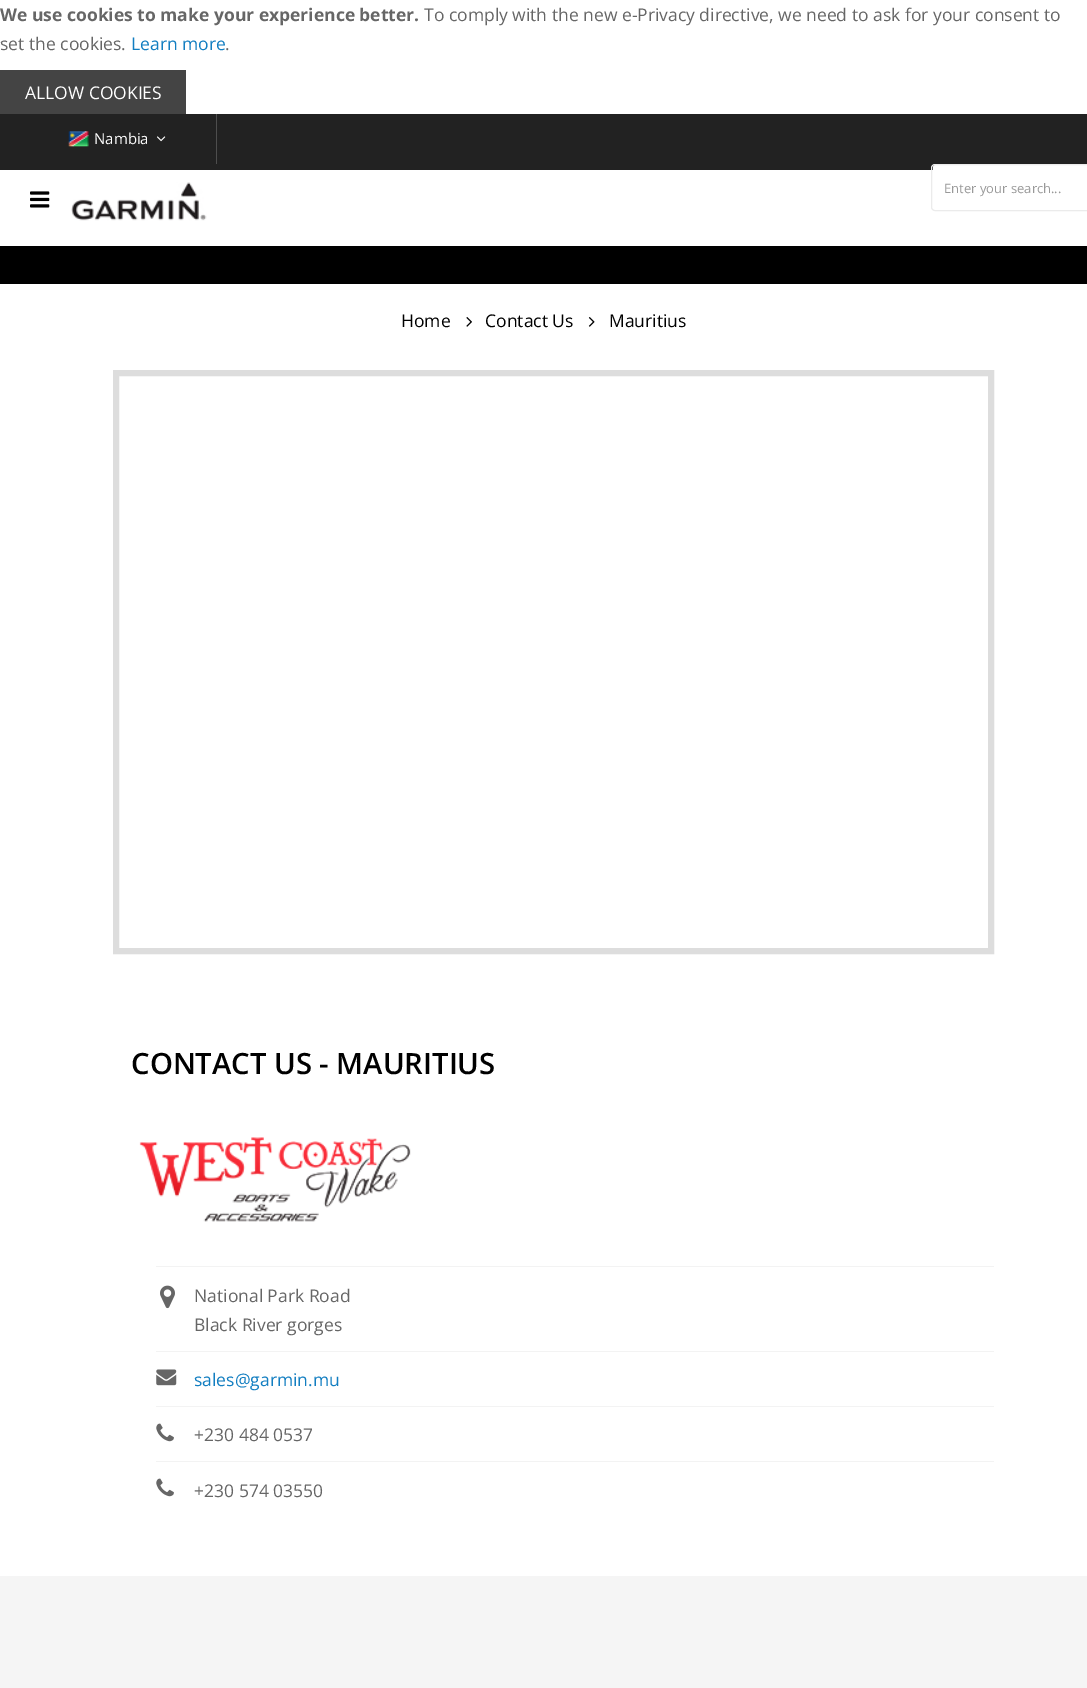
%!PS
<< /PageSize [1087 1688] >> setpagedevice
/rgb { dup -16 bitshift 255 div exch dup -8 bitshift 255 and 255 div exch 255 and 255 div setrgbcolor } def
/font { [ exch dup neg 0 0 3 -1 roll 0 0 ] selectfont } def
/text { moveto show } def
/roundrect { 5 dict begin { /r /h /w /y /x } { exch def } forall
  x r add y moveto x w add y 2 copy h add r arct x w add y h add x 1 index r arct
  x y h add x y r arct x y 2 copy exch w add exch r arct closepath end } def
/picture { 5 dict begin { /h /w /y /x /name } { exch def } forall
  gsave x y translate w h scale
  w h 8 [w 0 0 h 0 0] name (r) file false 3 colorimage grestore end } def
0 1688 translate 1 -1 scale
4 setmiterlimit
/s1 { /OpenSans-Bold 17.5 font 16#666666 rgb } def
/s2 { /OpenSans-Regular 17.5 font 16#666666 rgb } def
/s3 { /OpenSans-Regular 17.5 font 16#127EC1 rgb } def
/s4 { /OpenSans-Regular 17.5 font 16#FFFFFF rgb } def
/s5 { /OpenSans-Regular 15 font 16#FFFFFF rgb } def
/s6 { /OpenSans-Regular 13 font 16#999999 rgb } def
/s7 { /OpenSans-Regular 17.5 font 16#000000 rgb } def
/s8 { /OpenSans-SemiBold 29.25 font 16#000000 rgb } def
16#FFFFFF rgb
0 0 1087 1688 rectfill
s1
(We use cookies to make your experience better.) 0 21 text
s2
(To comply with the new e-Privacy directive, we need to ask for your consent to) 424 21 text
(set the cookies.) 0 50 text
s3
(Learn more) 131 50 text
s2
(.) 225 50 text
16#444444 rgb
0 70 186 44 rectfill
s4
(ALLOW COOKIES) 25 99 text
16#222222 rgb
0 114 1087 56 rectfill
16#4E4E4E rgb
216 114 1 50 rectfill
(pic1.raw) 68 131 21 16 picture
s5
(Nambia) 94 144 text
(pic2.raw) 157 136 9 6 picture
(pic3.raw) 71 182 136 39 picture
935.5 165 moveto 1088 165 lineto 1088 210 lineto 935.5 210 lineto 934 210 933 209 933 207.5 curveto 933 167.5 lineto 933 166 934 165 935.5 165 curveto closepath fill
16#EBEBEB rgb
931.5 164.5 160 46 3.5 roundrect stroke
s6
(Enter your search...) 944 193 text
(pic4.raw) 30 191 20 17 picture
16#000000 rgb
0 246 1087 38 rectfill
s7
(Home) 401 327 text
(pic5.raw) 466 317 6 10 picture
(Contact Us) 485 327 text
(pic6.raw) 588 317 7 10 picture
(Mauritius) 609 327 text
16#DDDDDD rgb
6 setlinewidth
116 373 875 578 rectstroke
s8
(CONTACT US - MAURITIUS) 131 1074 text
(pic7.raw) 139 1137 272 85 picture
16#F3F3F3 rgb
156 1266 838 1 rectfill
(pic8.raw) 160 1285 15 24 picture
s2
(National Park Road) 194 1302 text
(Black River gorges) 194 1331 text
16#F3F3F3 rgb
156 1351 838 1 rectfill
(pic9.raw) 156 1369 21 17 picture
s3
(sales@garmin.mu) 194 1386 text
16#F3F3F3 rgb
156 1406 838 1 rectfill
(pic10.raw) 156 1423 18 19 picture
s2
(+230 484 0537) 194 1441 text
16#F3F3F3 rgb
156 1461 838 1 rectfill
(pic10.raw) 156 1478 18 19 picture
s2
(+230 574 03550) 194 1497 text
16#F5F5F5 rgb
0 1576 1087 112 rectfill
showpage
